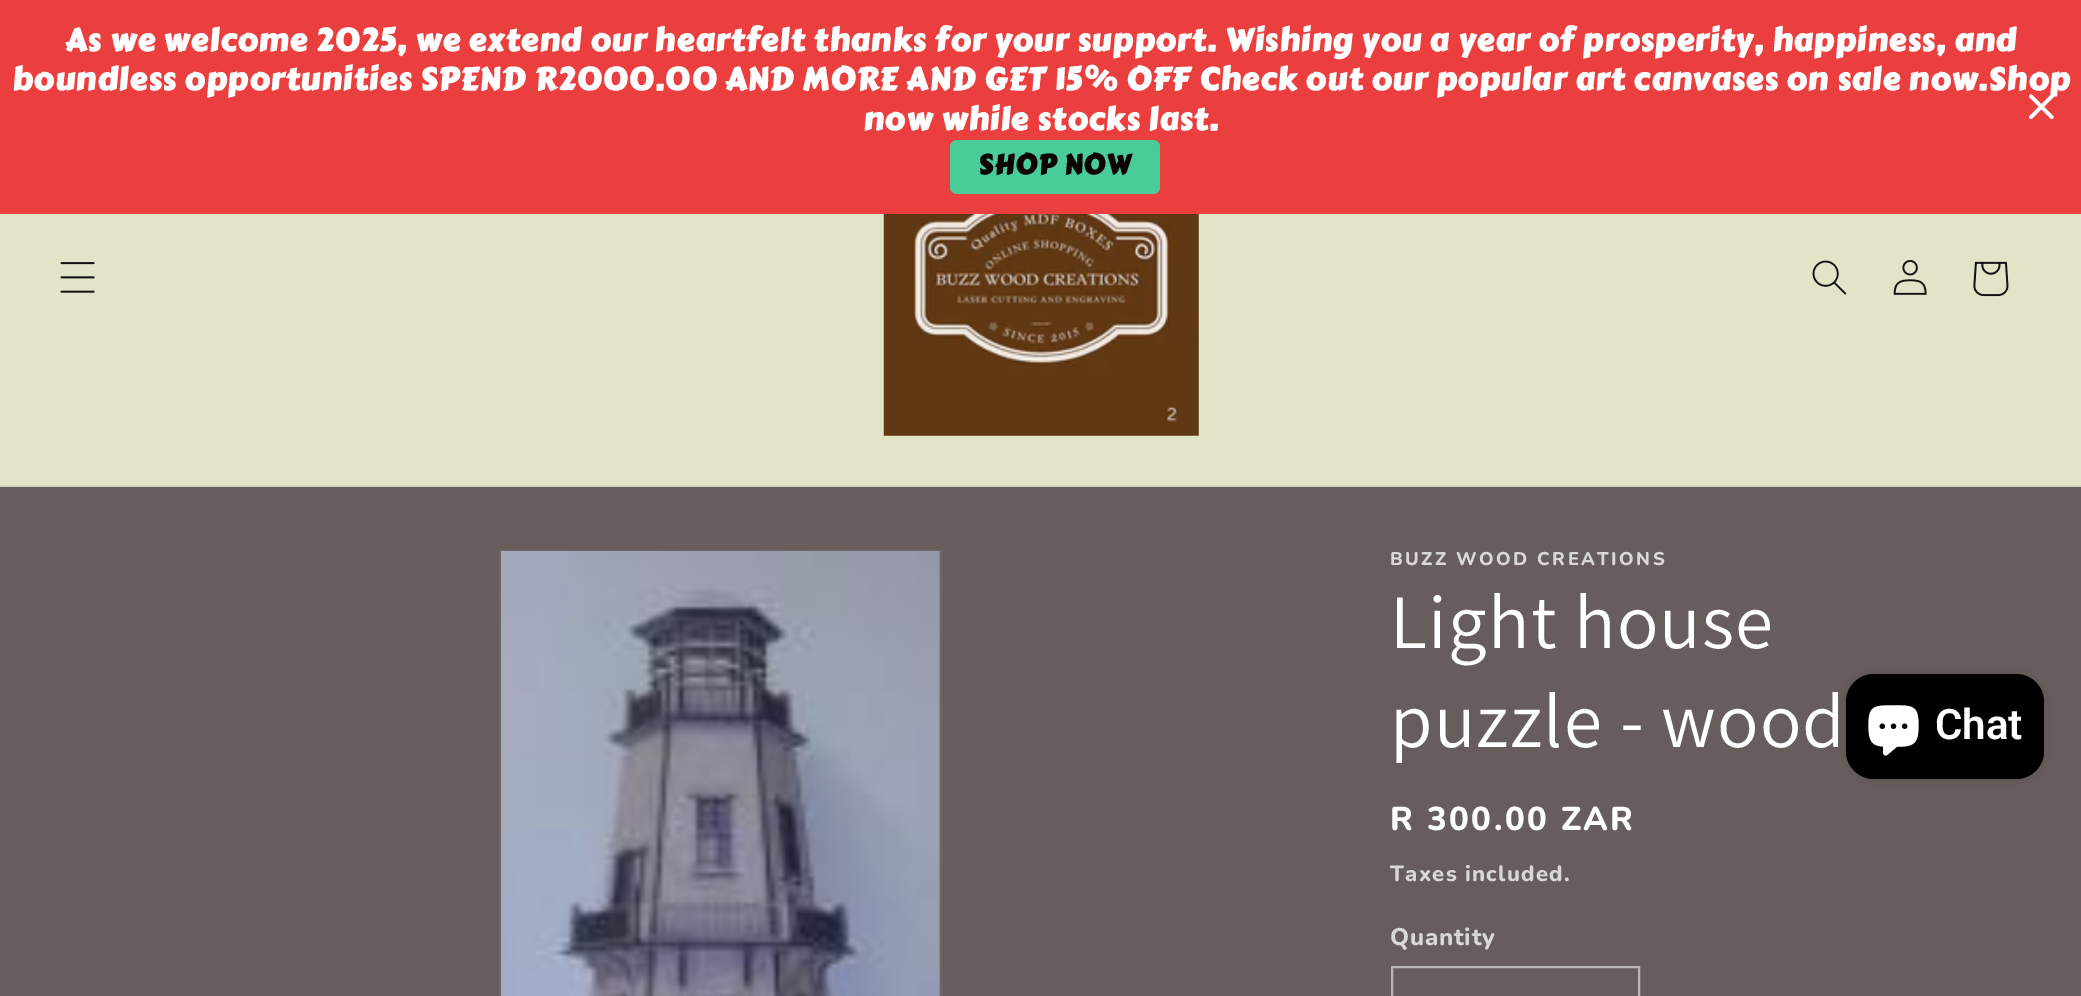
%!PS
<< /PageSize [2081 996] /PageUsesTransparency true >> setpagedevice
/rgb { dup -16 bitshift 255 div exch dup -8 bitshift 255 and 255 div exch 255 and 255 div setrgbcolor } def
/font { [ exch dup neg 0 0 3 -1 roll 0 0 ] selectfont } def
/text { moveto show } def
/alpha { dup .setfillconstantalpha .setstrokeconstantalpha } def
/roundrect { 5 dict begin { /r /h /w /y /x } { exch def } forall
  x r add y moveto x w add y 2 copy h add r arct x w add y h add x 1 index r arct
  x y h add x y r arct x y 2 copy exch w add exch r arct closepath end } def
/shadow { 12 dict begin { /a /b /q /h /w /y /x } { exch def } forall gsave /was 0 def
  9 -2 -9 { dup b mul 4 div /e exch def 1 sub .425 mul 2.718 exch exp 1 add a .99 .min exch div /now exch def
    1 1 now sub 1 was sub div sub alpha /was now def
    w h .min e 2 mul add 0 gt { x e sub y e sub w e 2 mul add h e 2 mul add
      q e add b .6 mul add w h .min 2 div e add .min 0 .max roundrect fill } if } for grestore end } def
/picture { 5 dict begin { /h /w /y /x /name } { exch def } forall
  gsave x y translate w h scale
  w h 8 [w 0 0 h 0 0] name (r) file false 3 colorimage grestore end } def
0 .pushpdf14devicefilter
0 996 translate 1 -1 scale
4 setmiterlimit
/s1 { /Roboto-SemiBold 42 font 16#FFFFFF rgb } def
16#685D5D rgb
0 0 2081 996 rectfill
16#EB3E3E rgb
0 0 2081 214 rectfill
/CarterOne-Bold 31.5 font
16#FFFFFF rgb
65 51 moveto 1.1 0 (As we welcome 2025, we extend our heartfelt thanks for your support. Wishing you a year of prosperity, happiness, and) ashow
12 90 moveto 1.1 0 (boundless opportunities SPEND R2000.00 AND MORE AND GET 15% OFF Check out our popular art canvases on sale now.Shop) ashow
863 130 moveto 1.1 0 (now while stocks last.) ashow
16#49CC97 rgb
950 140 210 54 7 roundrect fill
/CarterOne-Bold 27.5 font
16#0D0202 rgb
978 174 moveto 1.1 0 (SHOP NOW) ashow
(pic1.raw) 2029 94 25 26 picture
16#E1E4C6 rgb
0 214 2081 271 rectfill
16#D0D3B8 rgb
0 485 2081 2 rectfill
(pic2.raw) 60 262 35 31 picture
(pic3.raw) 883 214 316 222 picture
(pic4.raw) 1812 260 35 35 picture
(pic5.raw) 1893 260 34 35 picture
(pic6.raw) 1973 261 36 36 picture
16#706565 rgb
2 setlinewidth
500 551 441 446 rectstroke
(pic7.raw) 501 551 439 445 picture
/Nunito-ExtraBold 18.4 font
16#D9D7D7 rgb
1390 565 moveto 2.4 0 (BUZZ WOOD CREATIONS) ashow
/Assistant-Regular 77 font
16#FFFFFF rgb
1390 648 moveto 1.2 0 (Light house) ashow
1390 747 moveto 1.2 0 (puzzle - wood) ashow
/Nunito-ExtraBold 33 font
1390 830 moveto 2.4 0 (R 300.00 ZAR) ashow
/Nunito-ExtraBold 22 font
16#D9D7D7 rgb
1390 881 moveto 1.25 0 (Taxes included.) ashow
/Nunito-ExtraBold 24 font
1390 945 moveto 0.75 0 (Quantity) ashow
16#BBB6B6 rgb
1392 967 247 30 rectstroke
16#000000 rgb
1846 674 198 105 28 4.5 0.15 shadow
1846 674 198 105 28 roundrect fill
(pic8.raw) 1868 705 51 51 picture
s1
(Chat) 1935 739 text
.poppdf14devicefilter showpage
